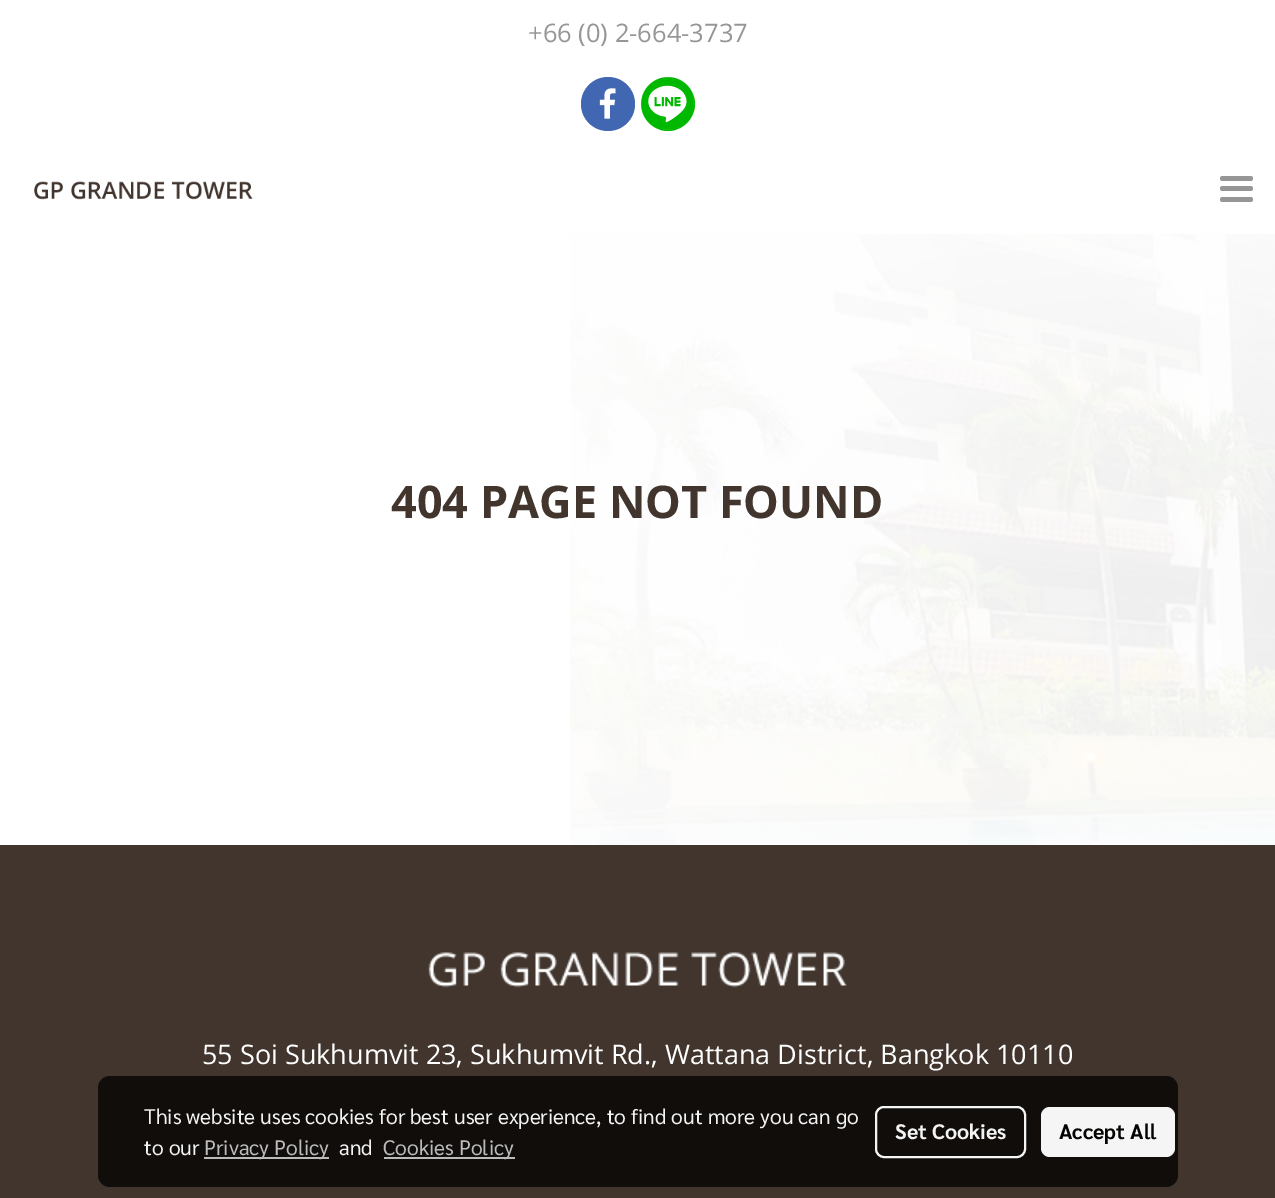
%!PS
<< /PageSize [1275 1198] /PageUsesTransparency true >> setpagedevice
/rgb { dup -16 bitshift 255 div exch dup -8 bitshift 255 and 255 div exch 255 and 255 div setrgbcolor } def
/font { [ exch dup neg 0 0 3 -1 roll 0 0 ] selectfont } def
/text { moveto show } def
/alpha { dup .setfillconstantalpha .setstrokeconstantalpha } def
/circle { newpath 0 360 arc closepath } def
/roundrect { 5 dict begin { /r /h /w /y /x } { exch def } forall
  x r add y moveto x w add y 2 copy h add r arct x w add y h add x 1 index r arct
  x y h add x y r arct x y 2 copy exch w add exch r arct closepath end } def
/picture { 5 dict begin { /h /w /y /x /name } { exch def } forall
  gsave x y translate w h scale
  w h 8 [w 0 0 h 0 0] name (r) file false 3 colorimage grestore end } def
0 .pushpdf14devicefilter
0 1198 translate 1 -1 scale
4 setmiterlimit
/s1 { /OpenSans-Regular 25.5 font 16#969696 rgb } def
/s2 { /OpenSans-Bold 45 font 16#41352E rgb } def
/s3 { /OpenSans-Regular 27 font 16#FFFFFF rgb } def
/s4 { /Sarabun-Regular 21 font 16#F3F3F3 rgb } def
/s5 { /Sarabun-Regular 21 font 16#BCBBBB rgb } def
/s6 { /Sarabun-Bold 21 font 16#F3F3F3 rgb } def
/s7 { /Sarabun-Bold 21 font 16#030302 rgb } def
16#FFFFFF rgb
0 0 1275 1198 rectfill
(pic1.raw) 570 234 705 611 picture
s1
(+66 \(0\) 2-664-3737) 528 42 text
16#4267B2 rgb
608 104 27 circle fill
(pic2.raw) 599 88 17 31 picture
16#00B800 rgb
668 104 27 circle fill
(pic3.raw) 641 77 53 53 picture
(pic4.raw) 34 181 219 19 picture
16#969696 rgb
1220 186 33 5 2.5 roundrect fill
1220 176 33 5 2.5 roundrect fill
1220 197 33 5 2.5 roundrect fill
s2
(404 PAGE NOT FOUND) 391 518 text
0 845 1275 353 rectfill
(pic5.raw) 428 952 419 36 picture
s3
(55 Soi Sukhumvit 23, Sukhumvit Rd., Wattana District, Bangkok 10110) 202 1064 text
0.76 alpha
16#000000 rgb
98 1076 1080 111 12 roundrect fill
1 alpha
s4
(This website uses cookies for best user experience, to find out more you can go) 144 1124 text
(to our) 144 1155 text
16#BCBBBB rgb
204 1157 125 2 rectfill
(Privacy Policy) 204 1155 text
s4
(and) 339 1155 text
16#BCBBBB rgb
384 1157 131 2 rectfill
(Cookies Policy) 383 1155 text
16#F6F5F5 rgb
2 setlinewidth
876 1107 149 50 8 roundrect stroke
s6
(Set Cookies) 895 1139 text
16#F6F5F5 rgb
1041 1107 134 50 9 roundrect fill
s7
(Accept All) 1059 1139 text
.poppdf14devicefilter showpage
